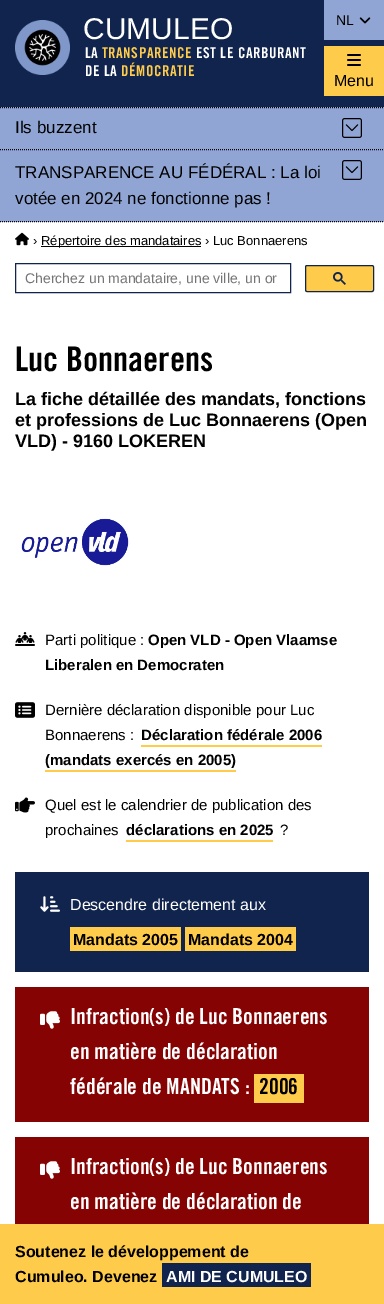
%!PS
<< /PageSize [384 1304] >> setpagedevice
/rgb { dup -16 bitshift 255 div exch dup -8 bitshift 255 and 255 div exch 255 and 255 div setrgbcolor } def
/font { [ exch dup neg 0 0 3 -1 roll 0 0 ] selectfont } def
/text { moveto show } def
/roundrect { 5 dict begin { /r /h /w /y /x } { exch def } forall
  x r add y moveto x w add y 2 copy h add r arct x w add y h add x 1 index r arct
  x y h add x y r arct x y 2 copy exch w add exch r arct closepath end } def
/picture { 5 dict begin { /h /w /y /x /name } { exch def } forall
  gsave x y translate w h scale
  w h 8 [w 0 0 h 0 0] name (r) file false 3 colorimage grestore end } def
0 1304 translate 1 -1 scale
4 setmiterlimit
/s1 { /LiberationSans-Regular 30 font 16#FFFFFF rgb } def
/s2 { /LiberationSans-Regular 14 font 16#000000 rgb } def
/s3 { /LiberationSans-Regular 16 font 16#000000 rgb } def
/s4 { /LiberationSans-Regular 17 font 16#000000 rgb } def
/s5 { /LiberationSans-Regular 13 font 16#000000 rgb } def
/s6 { /LiberationSans-Regular 14 font 16#757575 rgb } def
/s7 { /TradeGothic-Bold 34 font 16#000000 rgb } def
/s8 { /LiberationSans-Bold 18 font 16#000000 rgb } def
/s9 { /LiberationSans-Regular 15 font 16#000000 rgb } def
/s10 { /LiberationSans-Bold 15 font 16#000000 rgb } def
/s11 { /LiberationSans-Regular 16 font 16#FFFFFF rgb } def
/s12 { /LiberationSans-Bold 16 font 16#000000 rgb } def
/s13 { /TradeGothic-Bold 22 font 16#FFFFFF rgb } def
/s14 { /TradeGothic-Bold 22 font 16#000000 rgb } def
/s15 { /LiberationSans-Bold 16 font 16#FFFFFF rgb } def
16#FFFFFF rgb
0 0 384 1304 rectfill
16#10244D rgb
0 0 384 107 rectfill
(pic1.raw) 15 20 55 55 picture
s1
(CUMULEO) 83 39 text
16#90A5D4 rgb
324 0 60 40 rectfill
s2
(NL) 336 25 text
(pic2.raw) 359 17 12 7 picture
/TradeGothic-Bold 15 font
16#FFFFFF rgb
85 58 moveto 0.5 0 (LA) ashow
16#FECB4B rgb
102 58 moveto 0.5 0 (TRANSPARENCE) ashow
16#FFFFFF rgb
196 58 moveto 0.5 0 (EST LE CARBURANT) ashow
85 76 moveto 0.5 0 (DE LA) ashow
16#FECB4B rgb
121 76 moveto 0.5 0 (DÉMOCRATIE) ashow
324 46 60 50 rectfill
(pic3.raw) 347 54 14 12 picture
s3
(Menu) 334 86 text
16#90A5D4 rgb
0 107 384 115 rectfill
16#000000 rgb
[1 1] 0 setdash
0 107.5 moveto 384 107.5 lineto stroke
s4
(Ils buzzent) 15 133 text
(pic4.raw) 342 118 20 20 picture
0 149.5 moveto 384 149.5 lineto stroke
0 221.5 moveto 384 221.5 lineto stroke
(TRANSPARENCE AU FÉDÉRAL : La loi) 15 178 text
(votée en 2024 ne fonctionne pas !) 15 204 text
(pic4.raw) 342 160 20 20 picture
(pic5.raw) 15 232 14 14 picture
s5
(›) 33 245 text
41 246 160 1 rectfill
(Répertoire des mandataires › Luc Bonnaerens) 41 245 text
16#10244D rgb
[] 0 setdash
15.5 263.5 275 29 rectstroke
s6
(Cherchez un mandataire, une ville, un or) 25 283 text
16#FECB4B rgb
305.5 265.5 68 26 1.5 roundrect gsave fill grestore
16#10244D rgb
stroke
(pic6.raw) 333 272 13 13 picture
s7
(Luc Bonnaerens) 15 371 text
s8
(La fiche détaillée des mandats, fonctions) 15 405 text
(et professions de Luc Bonnaerens \(Open) 15 426 text
(VLD\) - 9160 LOKEREN) 15 447 text
(pic7.raw) 21 518 108 48 picture
(pic8.raw) 15 632 20 14 picture
s9
(Parti politique :) 45 645 text
s10
(Open VLD - Open Vlaamse) 148 645 text
(Liberalen en Democraten) 45 670 text
(pic9.raw) 15 702 20 16 picture
s9
(Dernière déclaration disponible pour Luc) 45 715 text
(Bonnaerens :) 45 740 text
s10
(Déclaration fédérale 2006) 141 740 text
16#FECB4B rgb
141 745 181 2 rectfill
s10
(\(mandats exercés en 2005\)) 45 765 text
16#FECB4B rgb
45 770 191 2 rectfill
(pic10.raw) 15 797 20 16 picture
s9
(Quel est le calendrier de publication des) 45 810 text
(prochaines) 45 835 text
s10
(déclarations en 2025) 126 835 text
16#FECB4B rgb
126 840 147 2 rectfill
s9
(?) 280 835 text
16#10244D rgb
15 872 354 100 rectfill
(pic11.raw) 40 896 20 16 picture
s11
(Descendre directement aux) 70 910 text
16#FECB4B rgb
70 927 111 24 rectfill
s12
(Mandats 2005) 73 945 text
16#FECB4B rgb
185 927 111 24 rectfill
s12
(Mandats 2004) 188 945 text
16#850303 rgb
15 987 354 135 rectfill
(pic12.raw) 40 1011 20 18 picture
s13
(Infraction\(s\) de Luc Bonnaerens) 70 1024 text
(en matière de déclaration) 70 1059 text
(fédérale de MANDATS :) 70 1094 text
16#FECB4B rgb
254 1074 50 29 rectfill
s14
(2006) 259 1094 text
16#850303 rgb
15 1137 354 87 rectfill
(pic12.raw) 40 1161 20 18 picture
s13
(Infraction\(s\) de Luc Bonnaerens) 70 1174 text
(en matière de déclaration de) 70 1209 text
16#FECB4B rgb
0 1224 384 80 rectfill
s12
(Soutenez le développement de) 15 1257 text
(Cumuleo. Devenez) 15 1282 text
16#10244D rgb
162 1263 149 24 rectfill
s15
(AMI DE CUMULEO) 166 1282 text
showpage
